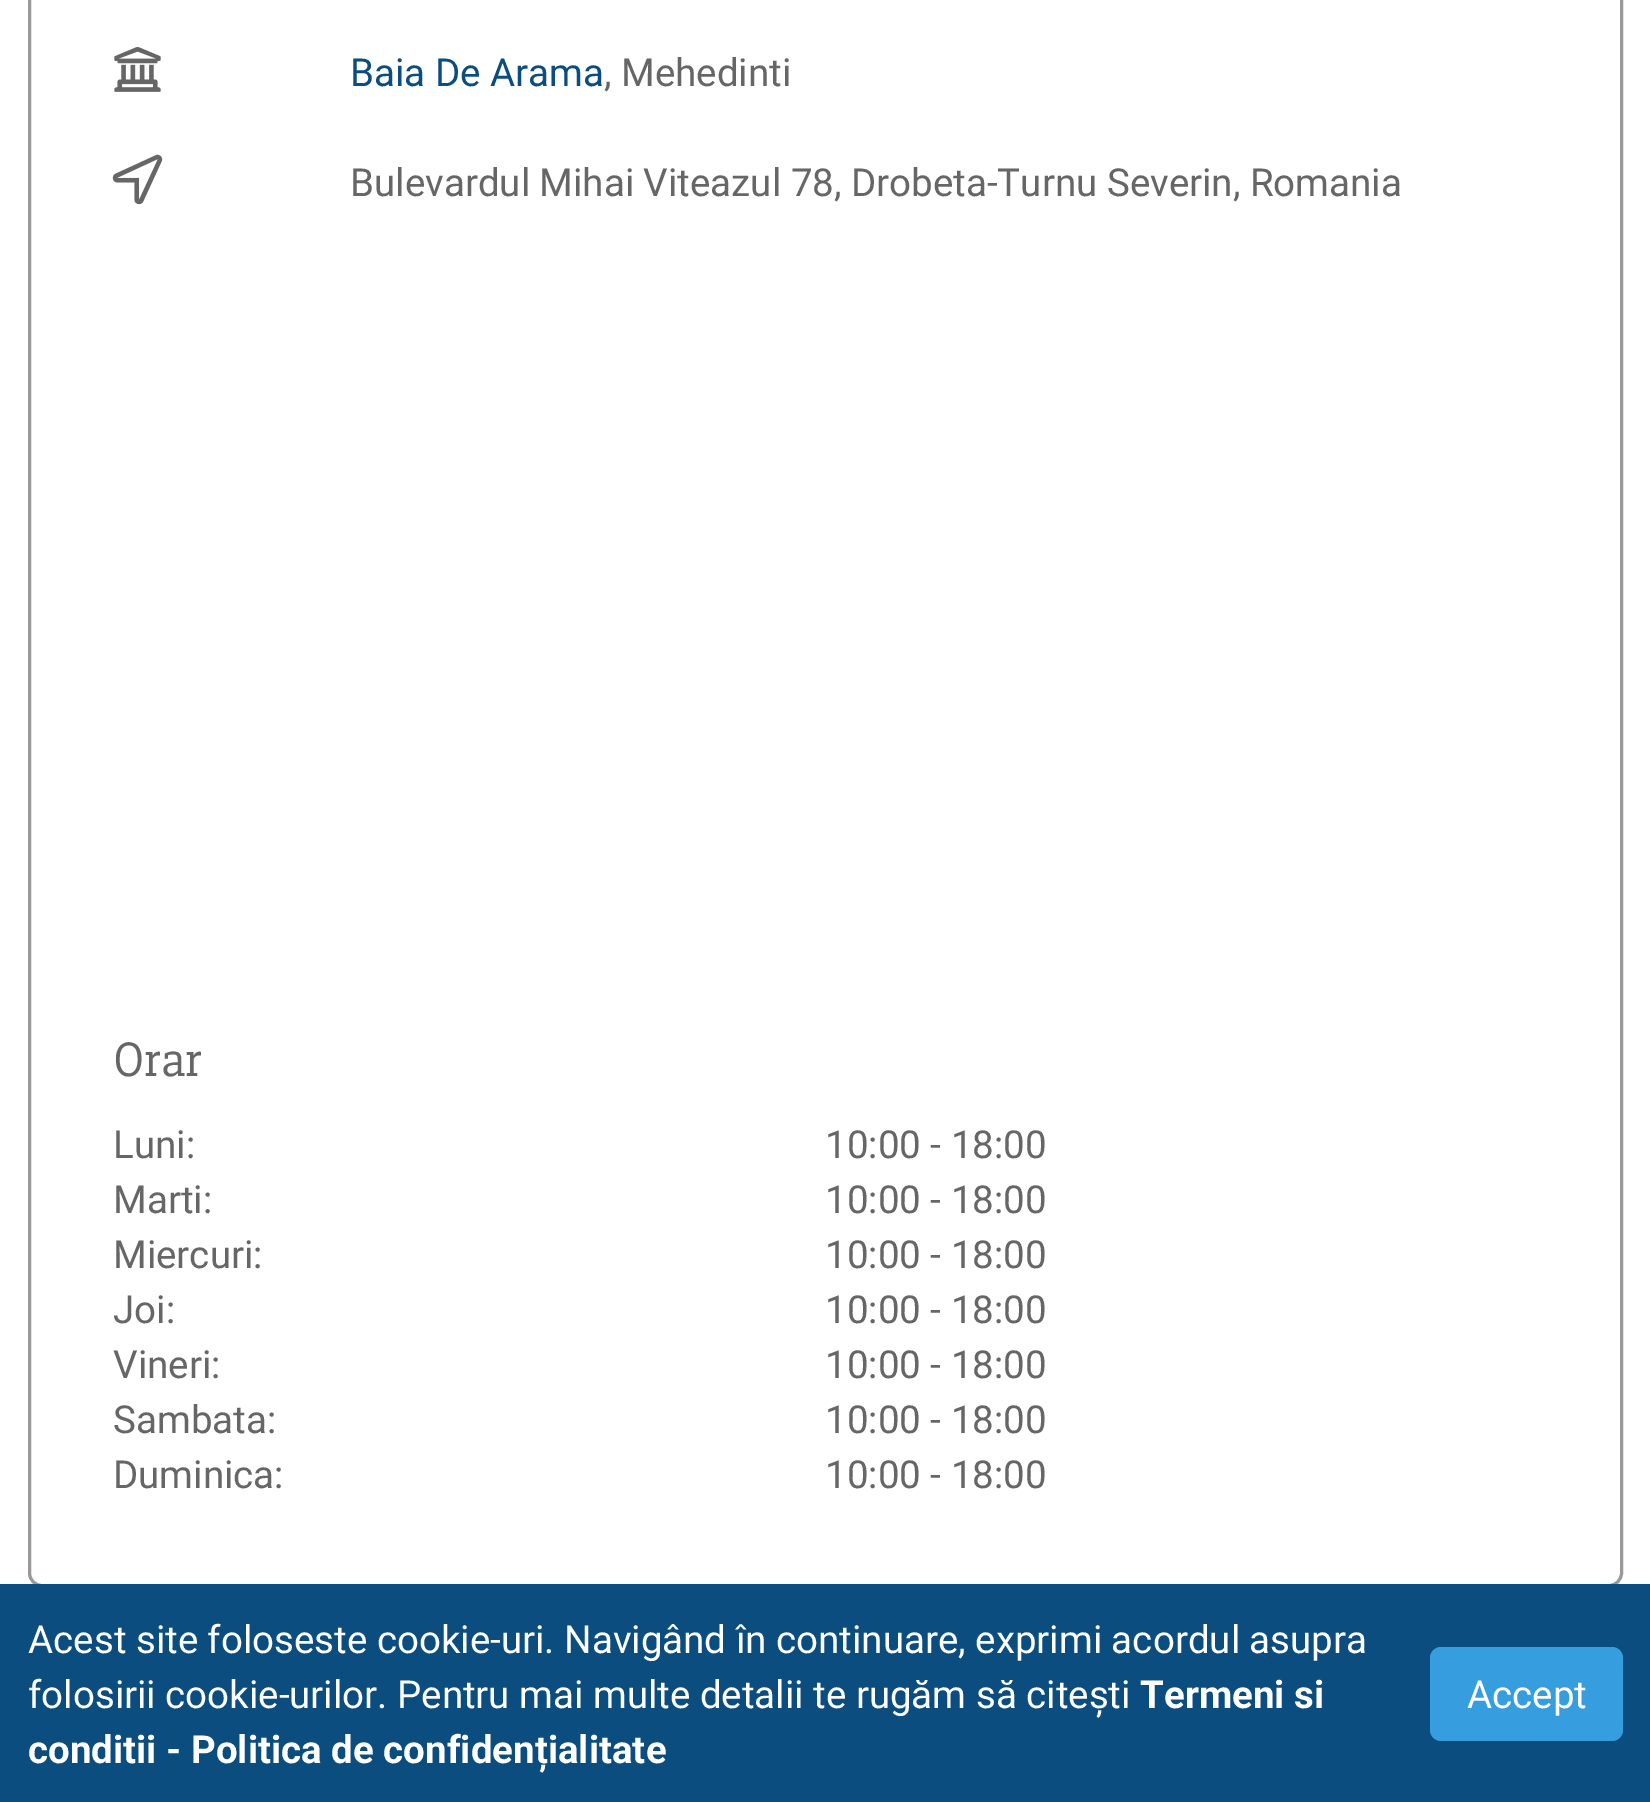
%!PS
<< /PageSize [1650 1802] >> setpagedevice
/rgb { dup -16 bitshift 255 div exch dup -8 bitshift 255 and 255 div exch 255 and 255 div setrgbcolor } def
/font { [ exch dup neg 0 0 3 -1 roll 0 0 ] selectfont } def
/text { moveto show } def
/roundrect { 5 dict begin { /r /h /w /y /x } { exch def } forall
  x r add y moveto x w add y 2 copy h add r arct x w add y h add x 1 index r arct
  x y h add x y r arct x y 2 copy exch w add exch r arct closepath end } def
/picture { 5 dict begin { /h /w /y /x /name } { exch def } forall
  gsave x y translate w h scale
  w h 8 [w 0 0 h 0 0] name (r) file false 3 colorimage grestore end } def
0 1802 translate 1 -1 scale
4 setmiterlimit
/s1 { /Roboto-Regular 38.5 font 16#0B4D7F rgb } def
/s2 { /Roboto-Regular 38.5 font 16#666666 rgb } def
/s3 { /Slabo27px-Regular 50 font 16#666666 rgb } def
/s4 { /Roboto-Regular 38.5 font 16#FFFFFF rgb } def
/s5 { /Roboto-Bold 38.5 font 16#FFFFFF rgb } def
16#FFFFFF rgb
0 0 1650 1802 rectfill
16#999999 rgb
3 setlinewidth
29.5 -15.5 1592 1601 12.5 roundrect stroke
(pic1.raw) 114 47 47 45 picture
s1
(Baia De Arama) 350 86 text
s2
(, Mehedinti) 604 86 text
(pic2.raw) 112 154 51 51 picture
(Bulevardul Mihai Viteazul 78, Drobeta-Turnu Severin, Romania) 350 196 text
s3
(Orar) 113 1076 text
s2
(Luni:) 113 1158 text
(10:00 - 18:00) 825 1158 text
(Marti:) 113 1213 text
(10:00 - 18:00) 825 1213 text
(Miercuri:) 113 1268 text
(10:00 - 18:00) 825 1268 text
(Joi:) 113 1323 text
(10:00 - 18:00) 825 1323 text
(Vineri:) 113 1378 text
(10:00 - 18:00) 825 1378 text
(Sambata:) 113 1433 text
(10:00 - 18:00) 825 1433 text
(Duminica:) 113 1488 text
(10:00 - 18:00) 825 1488 text
16#0B4D7F rgb
0 1584 1650 218 rectfill
s4
(Acest site foloseste cookie-uri. Navigând în continuare, exprimi acordul asupra) 28 1653 text
(folosirii cookie-urilor. Pentru mai multe detalii te rugăm să citești) 28 1708 text
s5
(Termeni si) 1140 1708 text
(conditii - Politica de confidențialitate) 28 1763 text
16#369DDE rgb
1430 1647 193 94 11 roundrect fill
s4
(Accept) 1467 1708 text
showpage
